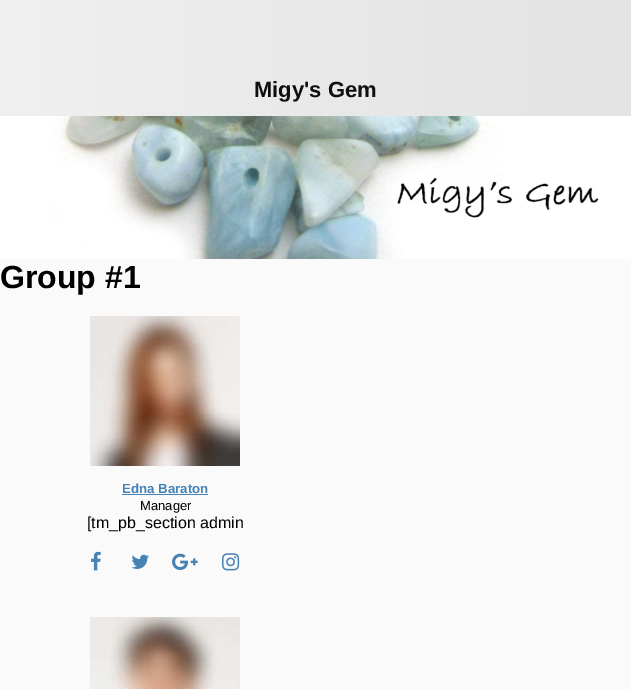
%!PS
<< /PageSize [631 689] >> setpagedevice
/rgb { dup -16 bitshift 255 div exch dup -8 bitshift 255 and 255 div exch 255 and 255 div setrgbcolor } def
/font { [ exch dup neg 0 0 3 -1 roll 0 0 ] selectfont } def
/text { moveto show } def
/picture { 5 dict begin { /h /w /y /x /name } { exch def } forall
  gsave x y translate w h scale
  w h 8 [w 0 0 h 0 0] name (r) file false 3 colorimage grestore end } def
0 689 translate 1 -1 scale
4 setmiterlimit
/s1 { /LiberationSans-Bold 22 font 16#0F0F0F rgb } def
/s2 { /LiberationSans-Bold 32 font 16#000000 rgb } def
/s3 { /LiberationSans-Bold 13.25 font 16#4682B4 rgb } def
/s4 { /LiberationSans-Regular 13 font 16#000000 rgb } def
/s5 { /LiberationSans-Regular 16 font 16#000000 rgb } def
16#FAFAFA rgb
0 0 631 689 rectfill
gsave 0 0 moveto 631 0 lineto 631 116 lineto 0 116 lineto closepath clip newpath
<< /ShadingType 2 /ColorSpace /DeviceRGB /Coords [631 58 0 58] /Extend [true true] /Function << /FunctionType 2 /Domain [0 1] /C0 [0.89 0.89 0.89] /C1 [0.941 0.941 0.941] /N 1 >> >> shfill grestore
s1
(Migy's Gem) 254 97 text
(pic1.raw) 0 116 631 143 picture
s2
(Group #1) 0 288 text
(pic2.raw) 90 316 150 150 picture
s3
(Edna Baraton) 122 493 text
122 494 86 1 rectfill
s4
(Manager) 140 510 text
s5
([tm_pb_section admin) 87 528 text
(pic3.raw) 91 551 10 20 picture
(pic4.raw) 131 554 18 15 picture
(pic5.raw) 172 553 26 17 picture
(pic6.raw) 222 553 18 18 picture
(pic7.raw) 90 617 150 72 picture
showpage
